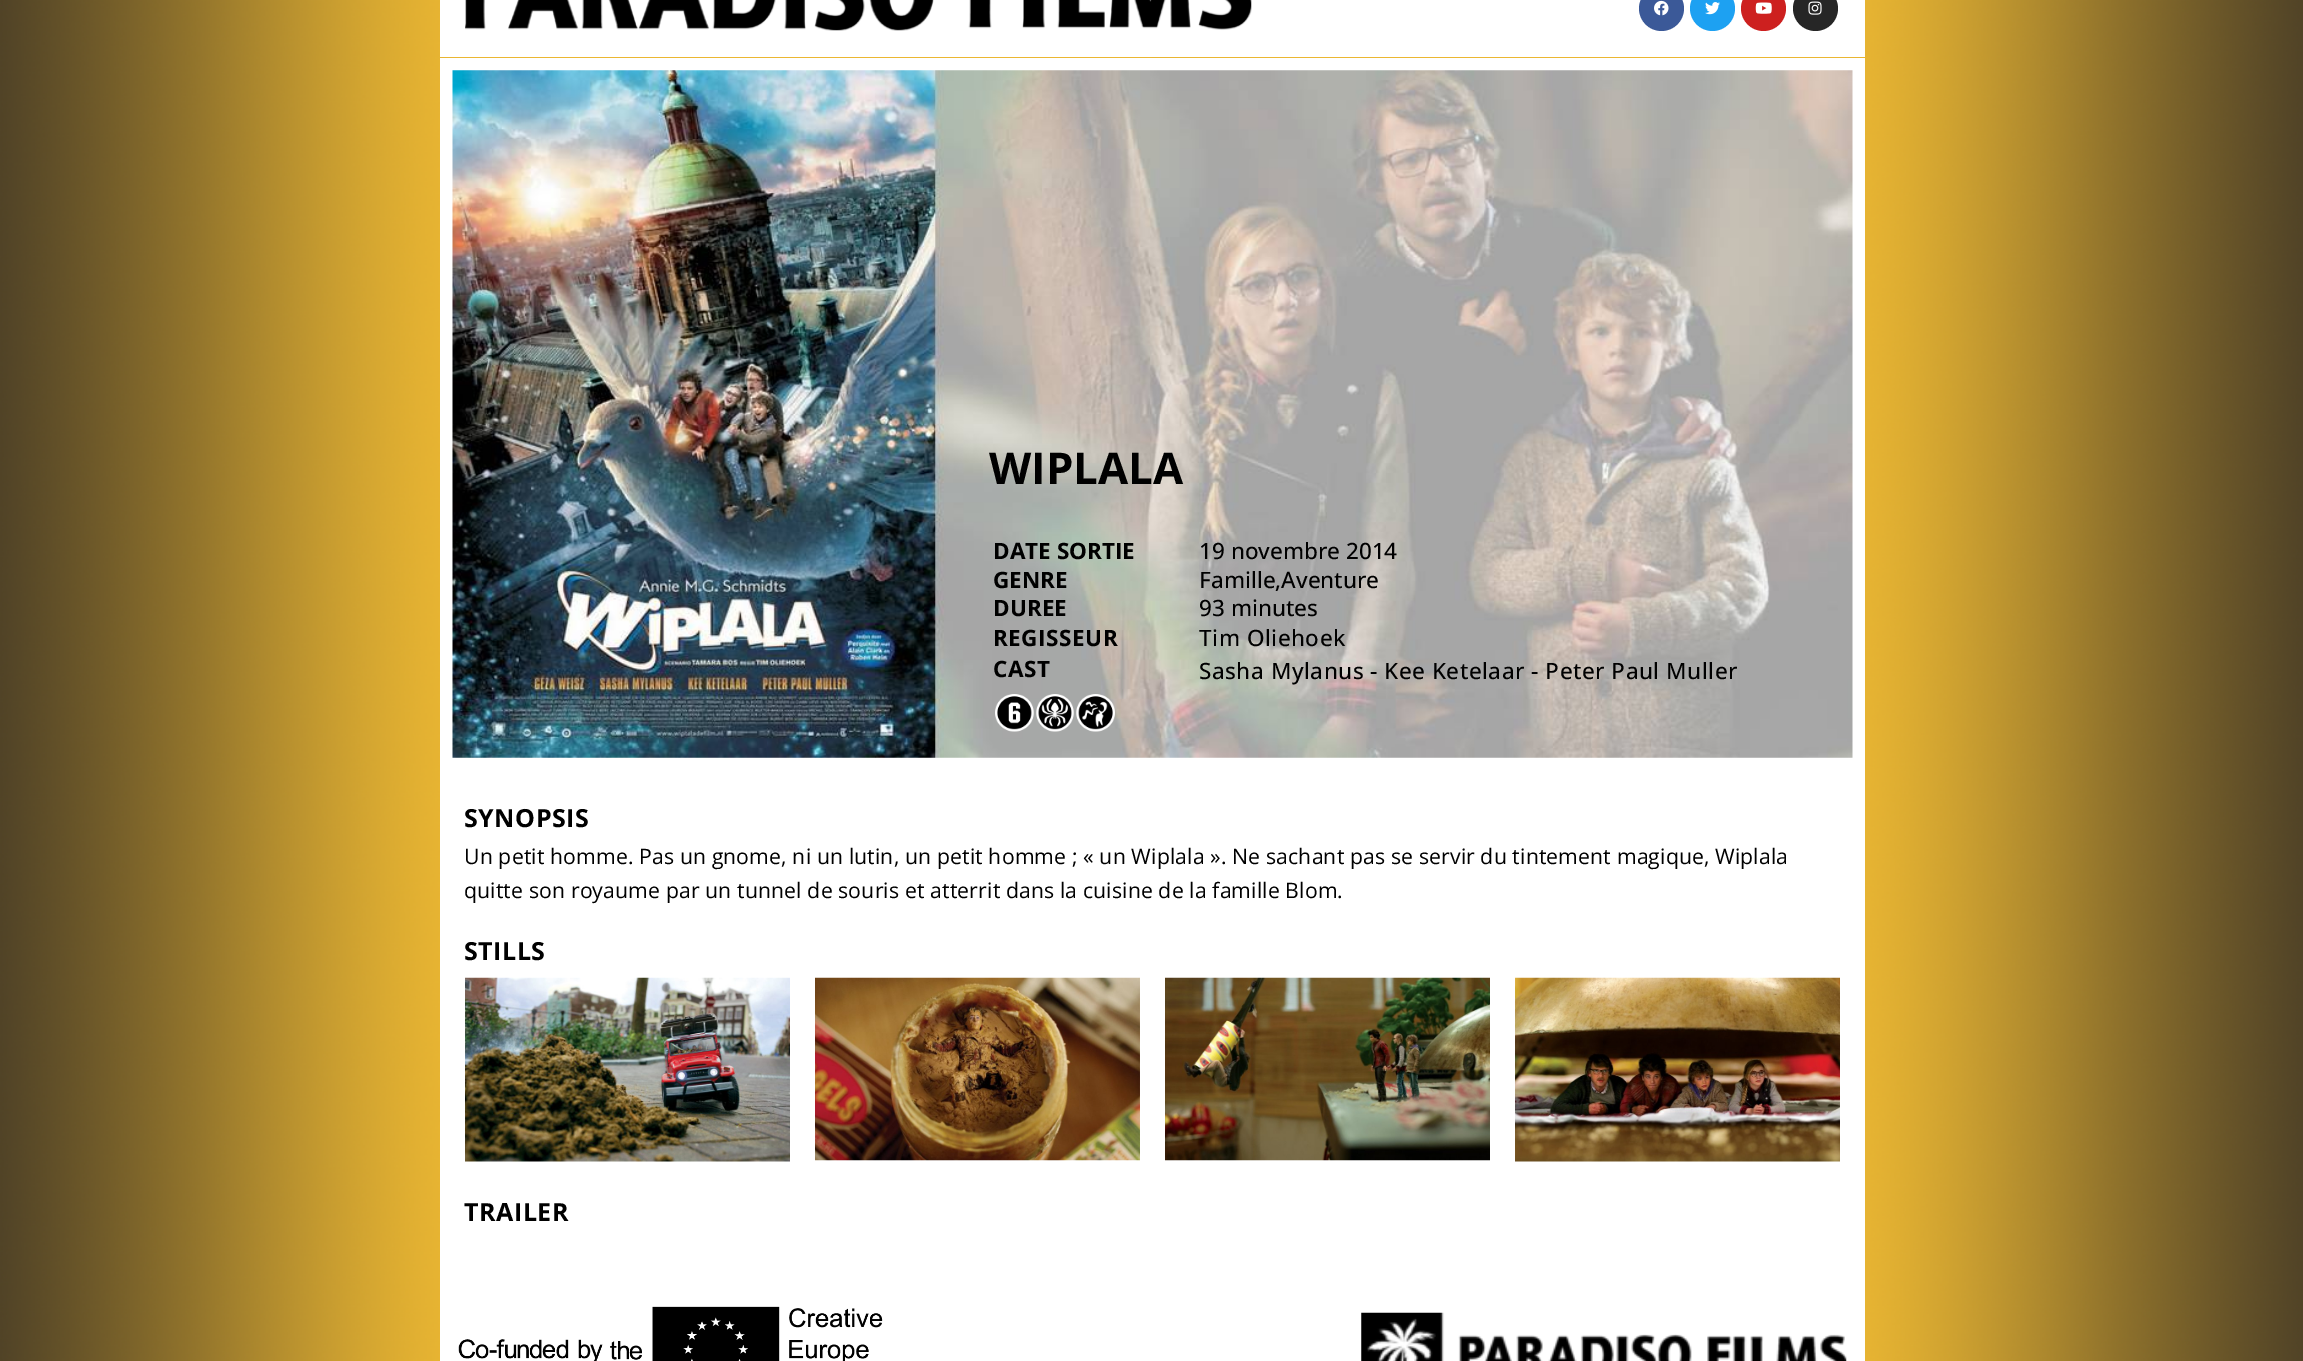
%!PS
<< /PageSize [2303 1361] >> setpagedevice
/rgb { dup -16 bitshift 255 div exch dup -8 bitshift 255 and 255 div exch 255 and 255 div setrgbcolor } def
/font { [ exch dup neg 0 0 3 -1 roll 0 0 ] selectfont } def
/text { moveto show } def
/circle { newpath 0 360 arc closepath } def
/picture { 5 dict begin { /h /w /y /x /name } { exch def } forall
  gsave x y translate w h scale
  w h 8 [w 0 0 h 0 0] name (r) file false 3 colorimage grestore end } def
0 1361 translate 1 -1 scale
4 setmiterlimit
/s1 { /OpenSans-Bold 43.75 font 16#000000 rgb } def
/s2 { /OpenSans-Bold 22.5 font 16#000000 rgb } def
/s3 { /OpenSans-Medium 22.5 font 16#000000 rgb } def
16#FFFFFF rgb
0 0 2303 1361 rectfill
(pic1.raw) 0 0 2303 1361 picture
440 0 1425 57 rectfill
(pic2.raw) 465 0 787 31 picture
16#3B5998 rgb
1661.5 8.5 22.5 circle fill
(pic3.raw) 1654 0 15 16 picture
16#1DA1F2 rgb
1712.5 8.5 22.5 circle fill
(pic4.raw) 1705 2 15 13 picture
16#CD201F rgb
1763.5 8.5 22.5 circle fill
(pic5.raw) 1755 2 17 12 picture
16#262626 rgb
1815.5 8.5 22.5 circle fill
(pic6.raw) 1808 1 14 14 picture
16#FFFFFF rgb
440 58 1425 1303 rectfill
(pic7.raw) 452 70 1401 688 picture
s1
(WIPLALA) 989 484 text
s2
(DATE SORTIE) 993 559 text
(GENRE) 993 588 text
(DUREE) 993 616 text
993 646 moveto 0.5 0 (REGISSEUR) ashow
993 677 moveto 0.5 0 (CAST) ashow
s3
(19 novembre 2014) 1199 559 text
(Famille,Aventure) 1199 588 text
(93 minutes) 1199 616 text
1199 646 moveto 0.5 0 (Tim Oliehoek) ashow
1199 679 moveto 0.5 0 (Sasha Mylanus - Kee Ketelaar - Peter Paul Muller) ashow
(pic8.raw) 995 694 39 38 picture
(pic9.raw) 1036 694 38 38 picture
(pic10.raw) 1076 694 39 38 picture
/OpenSans-Bold 25 font
464 827 moveto 0.5 0 (SYNOPSIS) ashow
/OpenSans-Regular 21.25 font
464 864 moveto 0.12 0 (Un petit homme. Pas un gnome, ni un lutin, un petit homme ; « un Wiplala ». Ne sachant pas se servir du tintement magique, Wiplala) ashow
464 898 moveto 0.12 0 (quitte son royaume par un tunnel de souris et atterrit dans la cuisine de la famille Blom.) ashow
/OpenSans-Bold 25 font
464 960 moveto 0.5 0 (STILLS) ashow
(pic11.raw) 465 977 325 185 picture
(pic12.raw) 815 977 325 184 picture
(pic13.raw) 1165 977 325 184 picture
(pic14.raw) 1515 977 325 185 picture
464 1221 moveto 0.5 0 (TRAILER) ashow
(pic15.raw) 458 1306 425 55 picture
(pic16.raw) 1361 1312 486 49 picture
showpage
